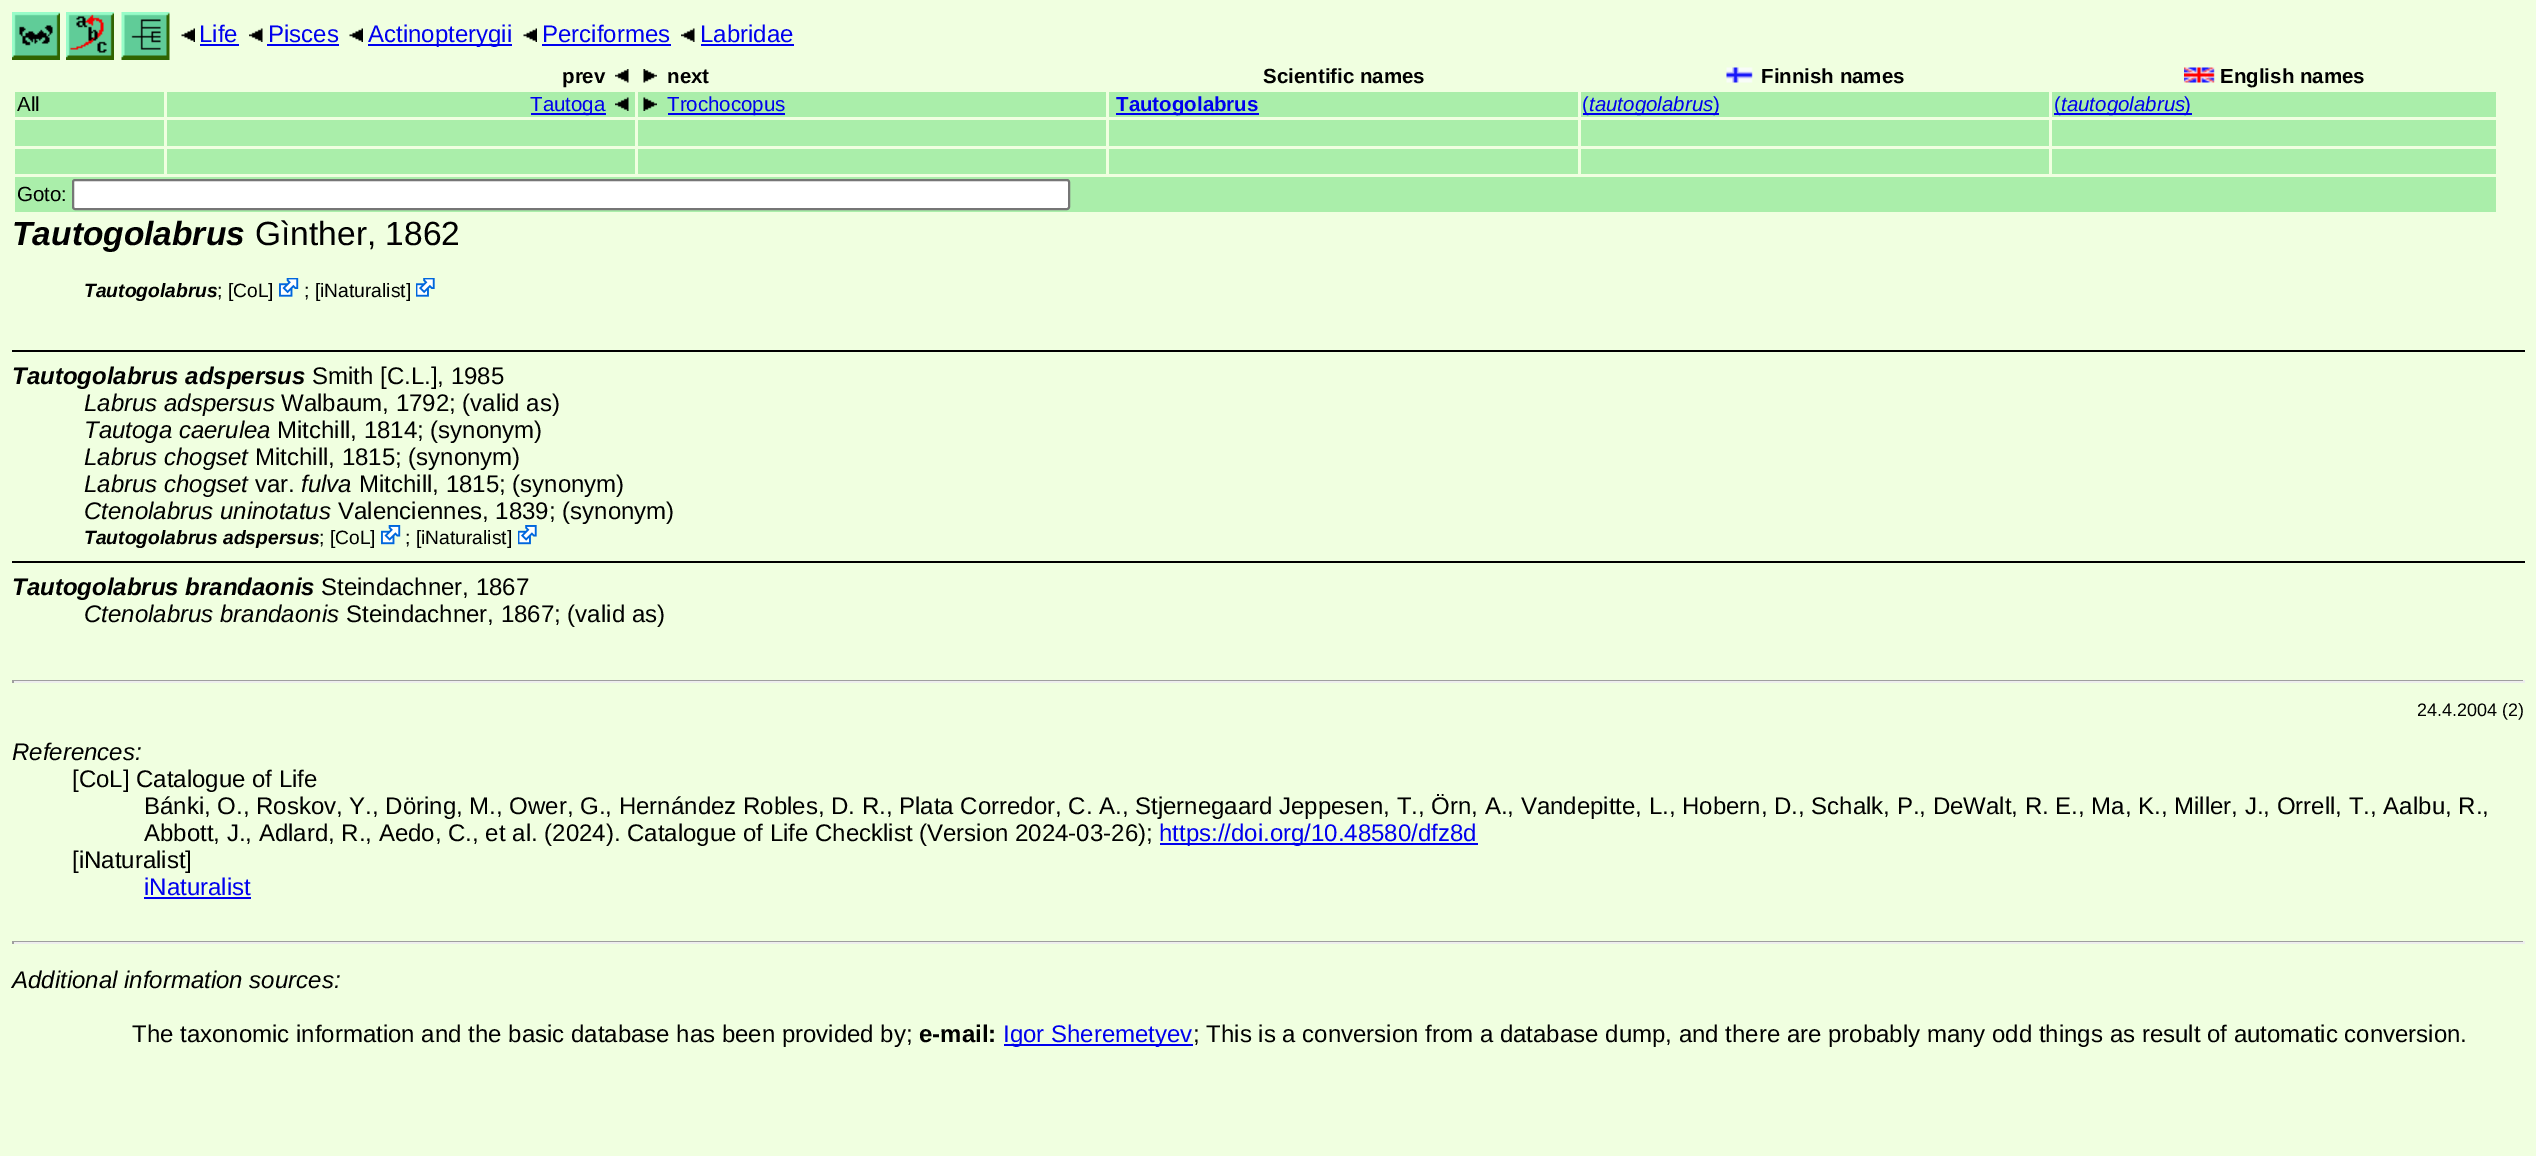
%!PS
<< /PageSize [2536 1156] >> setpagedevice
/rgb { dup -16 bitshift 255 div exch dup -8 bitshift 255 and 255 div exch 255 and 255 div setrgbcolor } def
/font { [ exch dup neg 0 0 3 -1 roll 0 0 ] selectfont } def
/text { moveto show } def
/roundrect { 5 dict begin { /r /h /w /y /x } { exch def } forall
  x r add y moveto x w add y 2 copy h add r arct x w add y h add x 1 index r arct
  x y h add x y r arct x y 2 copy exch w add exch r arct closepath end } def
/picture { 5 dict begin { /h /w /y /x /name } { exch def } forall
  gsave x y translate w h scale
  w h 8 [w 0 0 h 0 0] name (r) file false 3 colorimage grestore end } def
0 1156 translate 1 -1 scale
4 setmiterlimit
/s1 { /LiberationSans-Regular 24 font 16#0000EE rgb } def
/s2 { /LiberationSans-Bold 20.5 font 16#000000 rgb } def
/s3 { /LiberationSans-Regular 20.5 font 16#000000 rgb } def
/s4 { /LiberationSans-Regular 20.5 font 16#0000EE rgb } def
/s5 { /LiberationSans-Bold 20.5 font 16#0000EE rgb } def
/s6 { /LiberationSans-Italic 20.5 font 16#0000EE rgb } def
/s7 { /LiberationSans-BoldItalic 33.5 font 16#000000 rgb } def
/s8 { /LiberationSans-Regular 33.5 font 16#000000 rgb } def
/s9 { /LiberationSans-BoldItalic 19.25 font 16#000000 rgb } def
/s10 { /LiberationSans-Regular 19.25 font 16#000000 rgb } def
/s11 { /LiberationSans-BoldItalic 24 font 16#000000 rgb } def
/s12 { /LiberationSans-Regular 24 font 16#000000 rgb } def
/s13 { /LiberationSans-Italic 24 font 16#000000 rgb } def
/s14 { /LiberationSans-Regular 18 font 16#000000 rgb } def
/s15 { /LiberationSans-Bold 24 font 16#000000 rgb } def
16#F0FFE0 rgb
0 0 2536 1156 rectfill
(pic1.raw) 12 12 48 48 picture
(pic2.raw) 66 12 48 48 picture
(pic3.raw) 121 12 49 48 picture
(pic4.raw) 181 28 14 14 picture
s1
(Life) 199 42 text
200 44 39 2 rectfill
(pic5.raw) 249 28 14 14 picture
(Pisces) 268 42 text
267 44 72 2 rectfill
(pic4.raw) 349 28 14 14 picture
368 44 144 2 rectfill
(Actinopterygii) 368 42 text
(pic6.raw) 523 28 14 14 picture
(Perciformes) 542 42 text
542 44 129 2 rectfill
(pic5.raw) 681 28 14 14 picture
(Labridae) 700 42 text
701 44 93 2 rectfill
s2
(prev) 562 83 text
(pic7.raw) 615 69 14 14 picture
(pic8.raw) 643 69 14 14 picture
(next) 667 83 text
(Scientific names) 1263 83 text
(pic9.raw) 1726 67 27 16 picture
(Finnish names) 1761 83 text
(pic10.raw) 2184 67 31 16 picture
(English names) 2220 83 text
16#AAEEAA rgb
15 92 149 25 rectfill
s3
(All) 17 111 text
16#AAEEAA rgb
167 92 468 25 rectfill
16#0000EE rgb
531 113 75 2 rectfill
(Tautoga) 530 111 text
(pic11.raw) 615 97 14 14 picture
16#AAEEAA rgb
638 92 468 25 rectfill
(pic12.raw) 643 97 14 14 picture
16#0000EE rgb
668 113 117 2 rectfill
(Trochocopus) 667 111 text
16#AAEEAA rgb
1109 92 469 25 rectfill
16#0000EE rgb
1116 113 143 2 rectfill
s5
(Tautogolabrus) 1116 111 text
16#AAEEAA rgb
1581 92 468 25 rectfill
16#0000EE rgb
1583 113 136 2 rectfill
s4
(\() 1582 111 text
s6
(tautogolabrus) 1589 111 text
s4
(\)) 1713 111 text
16#AAEEAA rgb
2052 92 444 25 rectfill
16#0000EE rgb
2054 113 138 2 rectfill
(\() 2054 111 text
s6
(tautogolabrus) 2061 111 text
s4
(\)) 2184 111 text
16#AAEEAA rgb
15 120 149 26 rectfill
167 120 468 26 rectfill
638 120 468 26 rectfill
1109 120 469 26 rectfill
1581 120 468 26 rectfill
2052 120 444 26 rectfill
15 149 149 25 rectfill
167 149 468 25 rectfill
638 149 468 25 rectfill
1109 149 469 25 rectfill
1581 149 468 25 rectfill
2052 149 444 25 rectfill
15 177 2481 35 rectfill
s3
(Goto:) 17 201 text
16#FFFFFF rgb
73 180 996 29 2 roundrect gsave fill grestore
16#767676 rgb
2 setlinewidth
stroke
s7
(Tautogolabrus) 12 245 text
s8
(Gìnther, 1862) 255 245 text
s9
(Tautogolabrus) 84 297 text
s10
(; [CoL]) 217 297 text
(pic13.raw) 279 278 20 19 picture
(; [iNaturalist]) 304 297 text
(pic14.raw) 416 278 19 19 picture
12 350 2513 2 rectfill
s11
(Tautogolabrus adspersus) 12 384 text
s12
(Smith [C.L.], 1985) 312 384 text
s13
(Labrus adspersus) 84 411 text
s12
(Walbaum, 1792; \(valid as\)) 281 411 text
s13
(Tautoga caerulea) 84 438 text
s12
(Mitchill, 1814; \(synonym\)) 277 438 text
s13
(Labrus chogset) 84 465 text
s12
(Mitchill, 1815; \(synonym\)) 255 465 text
s13
(Labrus chogset) 84 492 text
s12
(var.) 255 492 text
s13
(fulva) 301 492 text
s12
(Mitchill, 1815; \(synonym\)) 359 492 text
s13
(Ctenolabrus uninotatus) 84 519 text
s12
(Valenciennes, 1839; \(synonym\)) 338 519 text
s9
(Tautogolabrus adspersus) 84 544 text
s10
(; [CoL]) 319 544 text
(pic15.raw) 381 525 20 20 picture
(; [iNaturalist]) 405 544 text
(pic16.raw) 518 525 19 20 picture
12 561 2513 2 rectfill
s11
(Tautogolabrus brandaonis) 12 595 text
s12
(Steindachner, 1867) 321 595 text
s13
(Ctenolabrus brandaonis) 84 622 text
s12
(Steindachner, 1867; \(valid as\)) 346 622 text
16#9F9F9F rgb
12 680 2513 1 rectfill
16#EEEEEE rgb
2523 680 2 3 rectfill
12 681 2513 2 rectfill
16#9F9F9F rgb
12 680 2 3 rectfill
s14
(24.4.2004 \(2\)) 2417 716 text
s13
(References:) 12 760 text
s12
([CoL] Catalogue of Life) 72 787 text
(Bánki, O., Roskov, Y., Döring, M., Ower, G., Hernández Robles, D. R., Plata Corredor, C. A., Stjernegaard Jeppesen, T., Örn, A., Vandepitte, L., Hobern, D., Schalk, P., DeWalt, R. E., Ma, K., Miller, J., Orrell, T., Aalbu, R.,) 144 814 text
(Abbott, J., Adlard, R., Aedo, C., et al. \(2024\). Catalogue of Life Checklist \(Version 2024-03-26\);) 144 841 text
16#0000EE rgb
1160 843 318 2 rectfill
(https://doi.org/10.48580/dfz8d) 1159 841 text
s12
([iNaturalist]) 72 868 text
s1
(iNaturalist) 144 895 text
144 897 107 2 rectfill
16#9F9F9F rgb
12 941 2513 1 rectfill
16#EEEEEE rgb
2523 941 2 3 rectfill
12 942 2513 2 rectfill
16#9F9F9F rgb
12 941 2 3 rectfill
s13
(Additional information sources:) 12 988 text
s12
(The taxonomic information and the basic database has been provided by;) 132 1042 text
s15
(e-mail:) 919 1042 text
16#0000EE rgb
1004 1044 189 2 rectfill
s1
(Igor Sheremetyev) 1003 1042 text
s12
(; This is a conversion from a database dump, and there are probably many odd things as result of automatic conversion.) 1193 1042 text
showpage
